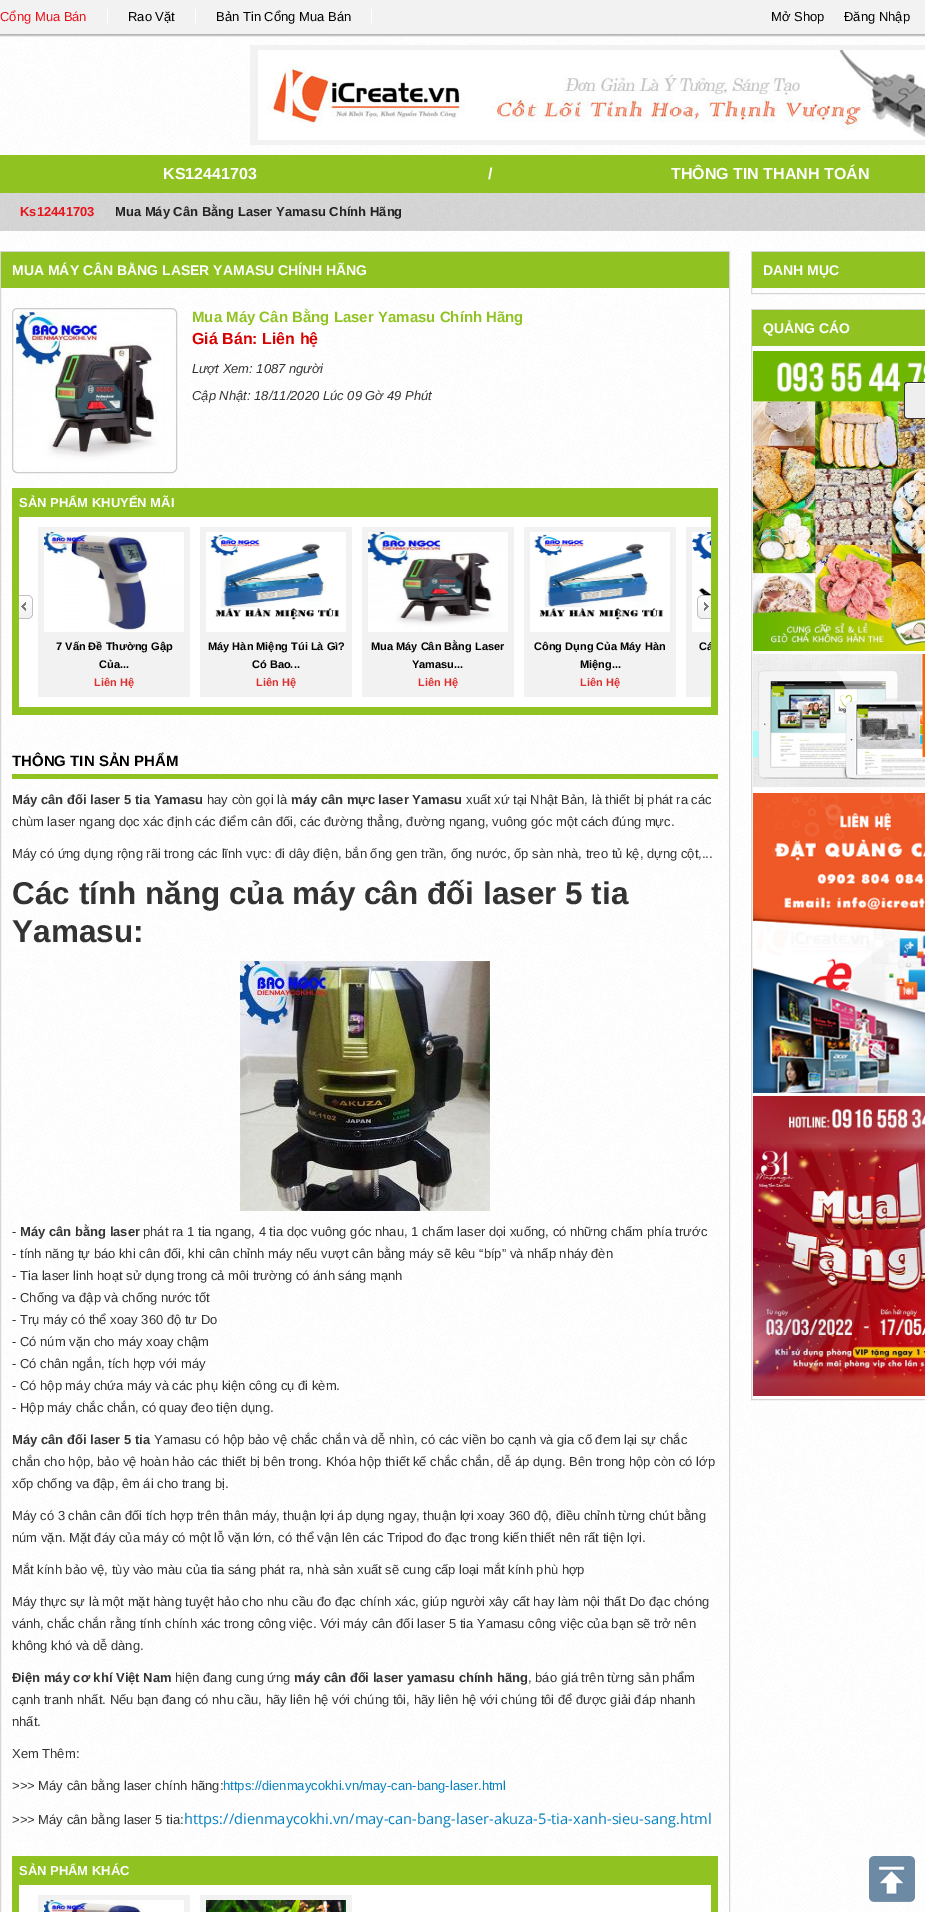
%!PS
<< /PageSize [925 1912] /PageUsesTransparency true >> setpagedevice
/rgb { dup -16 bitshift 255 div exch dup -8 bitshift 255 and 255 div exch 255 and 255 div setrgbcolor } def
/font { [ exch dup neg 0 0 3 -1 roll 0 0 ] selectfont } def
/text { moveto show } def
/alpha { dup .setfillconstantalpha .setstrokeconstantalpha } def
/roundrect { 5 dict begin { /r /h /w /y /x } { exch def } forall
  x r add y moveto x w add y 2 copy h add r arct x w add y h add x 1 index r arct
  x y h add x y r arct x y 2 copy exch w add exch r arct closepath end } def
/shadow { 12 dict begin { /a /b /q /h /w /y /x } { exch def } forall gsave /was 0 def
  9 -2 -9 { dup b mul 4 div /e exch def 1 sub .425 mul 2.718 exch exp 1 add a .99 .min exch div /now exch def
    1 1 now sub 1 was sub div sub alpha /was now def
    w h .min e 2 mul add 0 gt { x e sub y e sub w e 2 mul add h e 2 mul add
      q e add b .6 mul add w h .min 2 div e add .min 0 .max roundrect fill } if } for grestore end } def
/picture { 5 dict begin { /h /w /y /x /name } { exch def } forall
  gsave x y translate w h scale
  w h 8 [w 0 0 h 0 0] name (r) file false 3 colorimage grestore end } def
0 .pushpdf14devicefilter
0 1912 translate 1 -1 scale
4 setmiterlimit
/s1 { /LiberationSans-Regular 13 font 16#E7131A rgb } def
/s2 { /LiberationSans-Regular 13 font 16#000000 rgb } def
/s3 { /LiberationSans-Bold 16 font 16#FFFFFF rgb } def
/s4 { /LiberationSans-Bold 13 font 16#E7131A rgb } def
/s5 { /LiberationSans-Bold 13 font 16#222222 rgb } def
/s6 { /LiberationSans-Bold 14 font 16#FFFFFF rgb } def
/s7 { /LiberationSans-Bold 15 font 16#90C322 rgb } def
/s8 { /LiberationSans-Bold 16 font 16#D70000 rgb } def
/s9 { /LiberationSans-Italic 13 font 16#333333 rgb } def
/s10 { /LiberationSans-Bold 13 font 16#FFFFFF rgb } def
/s11 { /LiberationSans-Bold 11 font 16#000000 rgb } def
/s12 { /LiberationSans-Bold 11 font 16#DC3030 rgb } def
/s13 { /LiberationSans-Bold 15 font 16#000000 rgb } def
/s14 { /LiberationSans-Bold 13 font 16#333333 rgb } def
/s15 { /LiberationSans-Regular 13 font 16#333333 rgb } def
/s16 { /LiberationSans-Bold 31.5 font 16#333333 rgb } def
/s17 { /LiberationSans-Regular 13 font 16#0782C1 rgb } def
/s18 { /OpenSans-Regular 14.65 font 16#0782C1 rgb } def
16#FFFFFF rgb
0 0 925 1912 rectfill
(pic1.raw) 0 35 925 1877 picture
16#000000 rgb
0 1 925 35 0 0.5 0.25 shadow
16#F2F2F2 rgb
0 0 925 34 rectfill
16#B5B5B5 rgb
0 34 925 1 rectfill
s1
(Cổng Mua Bán) 0 21 text
16#FFFFFF rgb
107 9 1 15 rectfill
s2
(Rao Vặt) 128 21 text
16#FFFFFF rgb
195 9 1 15 rectfill
s2
(Bản Tin Cổng Mua Bán) 216 21 text
16#FFFFFF rgb
371 9 1 15 rectfill
s2
(Mở Shop) 771 21 text
(Đăng Nhập) 844 21 text
16#F2F2F2 rgb
250 45 675 100 rectfill
(pic2.raw) 258 50 667 90 picture
16#90C322 rgb
0 155 925 38 rectfill
s3
(KS12441703) 163 179 text
(/) 488 179 text
(THÔNG TIN THANH TOÁN) 671 179 text
(pic3.raw) 0 193 925 38 picture
s4
(Ks12441703) 20 216 text
s5
(Mua Máy Cân Bằng Laser Yamasu Chính Hãng) 115 216 text
16#D6D6D6 rgb
0.5 251.5 729 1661 rectstroke
16#90C322 rgb
1 252 728 36 rectfill
s6
(MUA MÁY CÂN BẰNG LASER YAMASU CHÍNH HÃNG) 12 275 text
16#CCCCCC rgb
12.5 308.5 164 164 4.5 roundrect stroke
(pic4.raw) 16 312 157 157 picture
s7
(Mua Máy Cân Bằng Laser Yamasu Chính Hãng) 192 322 text
s8
(Giá Bán: Liên hệ) 192 344 text
s9
(Lượt Xem: 1087 người) 192 373 text
(Cập Nhật: 18/11/2020 Lúc 09 Gờ 49 Phút) 192 400 text
16#90C322 rgb
12 488 706 227 rectfill
s10
(SẢN PHẨM KHUYẾN MÃI) 19 507 text
19 517 692 190 rectfill
(pic5.raw) 19 595 14 24 picture
16#F2F2F2 rgb
686 527 25 170 rectfill
(pic11.raw) 692 532 19 100 picture
(pic6.raw) 697 595 14 24 picture
38 527 152 170 rectfill
(pic7.raw) 44 532 140 100 picture
s11
(7 Vấn Đề Thường Gập) 56 650 text
(Của...) 99 668 text
s12
(Liên Hệ) 94 686 text
16#F2F2F2 rgb
200 527 152 170 rectfill
(pic8.raw) 206 532 140 100 picture
s11
(Máy Hàn Miệng Túi Là Gì?) 208 650 text
(Có Bao...) 252 668 text
s12
(Liên Hệ) 256 686 text
16#F2F2F2 rgb
362 527 152 170 rectfill
(pic9.raw) 368 532 140 100 picture
s11
(Mua Máy Cân Bằng Laser) 371 650 text
(Yamasu...) 412 668 text
s12
(Liên Hệ) 418 686 text
16#F2F2F2 rgb
524 527 152 170 rectfill
(pic10.raw) 530 532 140 100 picture
s11
(Công Dụng Của Máy Hàn) 534 650 text
(Miệng...) 580 668 text
s12
(Liên Hệ) 580 686 text
gsave
686 527 25 170 rectclip
s11
(Cá) 699 650 text
grestore
16#90C322 rgb
12 774 706 5 rectfill
s13
(THÔNG TIN SẢN PHẨM) 12 766 text
s14
(Máy cân đối laser 5 tia Yamasu) 12 804 text
s15
(hay còn gọi là) 207 804 text
s14
(máy cân mực laser Yamasu) 291 804 text
s15
(xuất xứ tại Nhật Bản, là thiết bị phát ra các) 466 804 text
(chùm laser ngang dọc xác định các điểm cân đối, các đường thẳng, đường ngang, vuông góc một cách đúng mực.) 12 826 text
(Máy có ứng dụng rộng rãi trong các lĩnh vực: đi dây điện, bắn ống gen trần, ống nước, ốp sàn nhà, treo tủ kệ, dựng cột,...) 12 858 text
s16
(Các tính năng của máy cân đối laser 5 tia) 12 904 text
(Yamasu:) 12 942 text
(pic12.raw) 240 961 250 250 picture
s15
(-) 12 1236 text
s14
(Máy cân bằng laser) 20 1236 text
s15
(phát ra 1 tia ngang, 4 tia dọc vuông góc nhau, 1 chấm laser dọi xuống, có những chấm phía trước) 143 1236 text
(- tính năng tự báo khi cân đối, khi cân chỉnh máy nếu vượt cân bằng máy sẽ kêu “bíp” và nhấp nháy đèn) 12 1258 text
(- Tia laser linh hoạt sử dụng trong cả môi trường có ánh sáng mạnh) 12 1280 text
(- Chống va đập và chống nước tốt) 12 1302 text
(- Trụ máy có thể xoay 360 độ tư Do) 12 1324 text
(- Có núm vặn cho máy xoay chậm) 12 1346 text
(- Có chân ngắn, tích hợp với máy) 12 1368 text
(- Có hộp máy chứa máy và các phụ kiện công cụ đi kèm.) 12 1390 text
(- Hộp máy chắc chắn, có quay đeo tiện dụng.) 12 1412 text
s14
(Máy cân đối laser 5 tia) 12 1444 text
s15
(Yamasu có hộp bảo vệ chắc chắn và dễ nhìn, có các viền bo cạnh và gia cố đem lại sự chắc) 154 1444 text
(chắn cho hộp, bảo vệ hoàn hảo các thiết bị bên trong. Khóa hộp thiết kế chắc chắn, dễ áp dụng. Bên trong hộp còn có lớp) 12 1466 text
(xốp chống va đập, êm ái cho trang bị.) 12 1488 text
(Máy có 3 chân cân đối tích hợp trên thân máy, thuận lợi áp dụng ngay, thuận lợi xoay 360 độ, điều chỉnh từng chút bằng) 12 1520 text
(núm vặn. Mặt đáy của máy có một lỗ vặn lớn, có thể vận lên các Tripod đo đạc trong kiến thiết nên rất tiện lợi.) 12 1542 text
(Mắt kính bảo vệ, tùy vào màu của tia sáng phát ra, nhà sản xuất sẽ cung cấp loại mắt kính phù hợp) 12 1574 text
(Máy thực sự là một mặt hàng tuyệt hảo cho nhu cầu đo đạc chính xác, giúp người xây cất hay làm nội thất Do đạc chóng) 12 1606 text
(vánh, chắc chắn rằng tính chính xác trong công việc. Với máy cân đối laser 5 tia Yamasu công việc của bạn sẽ trở nên) 12 1628 text
(không khó và dễ dàng.) 12 1650 text
s14
(Điện máy cơ khí Việt Nam) 12 1682 text
s15
(hiện đang cung ứng) 175 1682 text
s14
(máy cân đối laser yamasu chính hãng) 294 1682 text
s15
(, báo giá trên từng sản phẩm) 528 1682 text
(cạnh tranh nhất. Nếu bạn đang có nhu cầu, hãy liên hệ với chúng tôi, hãy liên hệ với chúng tôi để được giải đáp nhanh) 12 1704 text
(nhất.) 12 1726 text
(Xem Thêm:) 12 1758 text
(>>> Máy cân bằng laser chính hãng:) 12 1790 text
s17
(https://dienmaycokhi.vn/may-can-bang-laser.html) 223 1790 text
s15
(>>> Máy cân bằng laser 5 tia:) 12 1824 text
s18
(https://dienmaycokhi.vn/may-can-bang-laser-akuza-5-tia-xanh-sieu-sang.html) 184 1824 text
16#90C322 rgb
12 1856 706 56 rectfill
s10
(SẢN PHẨM KHÁC) 19 1875 text
19 1885 692 27 rectfill
16#F2F2F2 rgb
38 1895 152 17 rectfill
(pic13.raw) 44 1900 140 12 picture
200 1895 152 17 rectfill
(pic14.raw) 206 1900 140 12 picture
16#D6D6D6 rgb
751.5 251.5 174 42 rectstroke
16#90C322 rgb
752 252 173 36 rectfill
s6
(DANH MỤC) 763 275 text
16#D6D6D6 rgb
751.5 309.5 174 1090 rectstroke
16#90C322 rgb
752 310 173 36 rectfill
s6
(QUẢNG CÁO) 763 333 text
(pic15.raw) 753 351 172 300 picture
(pic16.raw) 753 654 172 133 picture
(pic17.raw) 753 793 172 300 picture
(pic18.raw) 753 1096 172 300 picture
16#EEEEEE rgb
907 382 moveto 925 382 lineto 925 419 lineto 907 419 lineto 905.5 419 904 417.5 904 416 curveto 904 385 lineto 904 383.5 905.5 382 907 382 curveto closepath fill
16#FFFFFF rgb
907 384 moveto 925 384 lineto 925 383 lineto 913 383 lineto 909 383 905 381.5 905 386 curveto 905 385 906 384 907 384 curveto closepath fill
16#333333 rgb
907 382 moveto 925 382 lineto 925 419 lineto 907 419 lineto 905.5 419 904 417.5 904 416 curveto 904 385 lineto 904 383.5 905.5 382 907 382 curveto closepath 907 383 moveto 925 383 lineto 925 418 lineto 907 418 lineto 906 418 905 417 905 416 curveto 905 385 lineto 905 384 906 383 907 383 curveto closepath eofill
(pic19.raw) 869 1856 46 46 picture
.poppdf14devicefilter showpage
